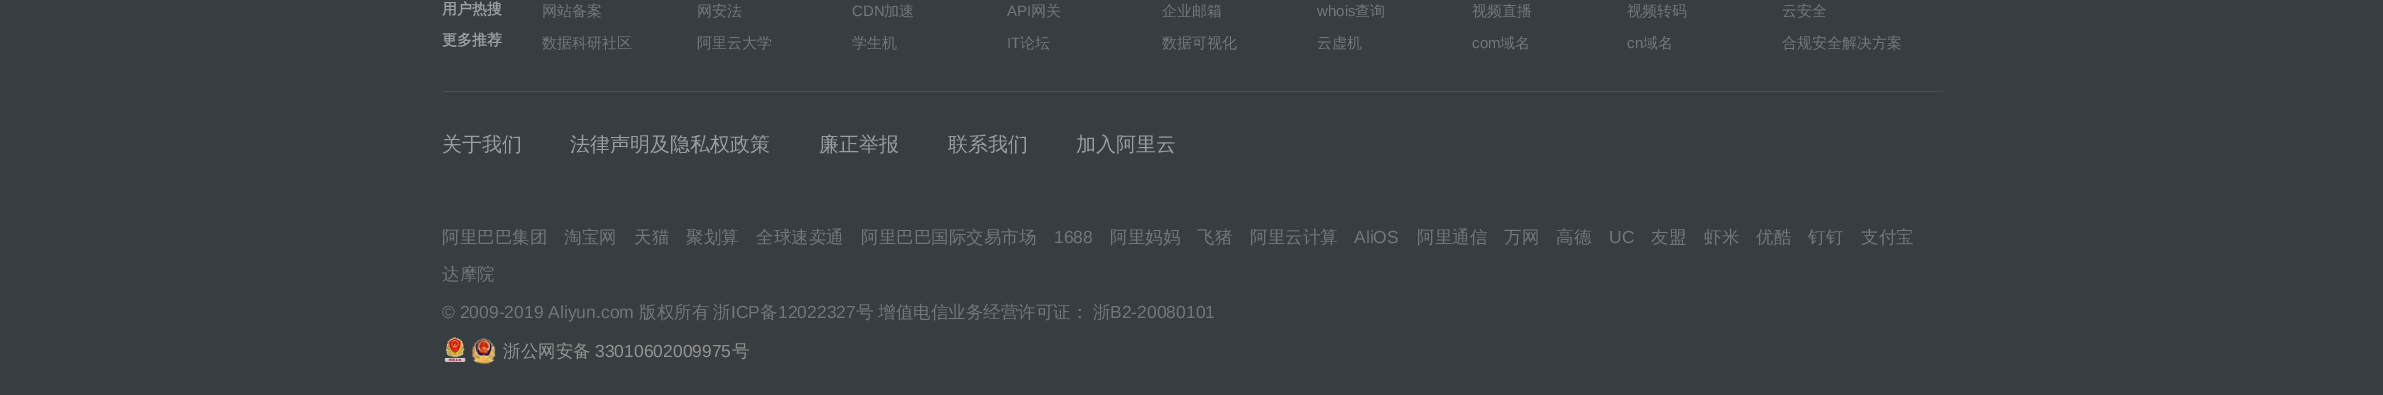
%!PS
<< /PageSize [2383 395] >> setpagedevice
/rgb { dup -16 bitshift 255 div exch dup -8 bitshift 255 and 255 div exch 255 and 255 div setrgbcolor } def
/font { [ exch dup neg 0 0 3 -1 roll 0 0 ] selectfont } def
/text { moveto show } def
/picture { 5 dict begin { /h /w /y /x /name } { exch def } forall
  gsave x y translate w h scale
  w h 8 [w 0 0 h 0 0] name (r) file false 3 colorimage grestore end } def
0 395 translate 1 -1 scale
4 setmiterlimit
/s1 { /WenQuanYiZenHei-Bold 15 font 16#9B9EA0 rgb } def
/s2 { /WenQuanYiZenHei-Medium 15 font 16#73777A rgb } def
/s3 { /LiberationSans-Regular 15 font 16#73777A rgb } def
/s4 { /WenQuanYiZenHei-Medium 20 font 16#9B9EA0 rgb } def
/s5 { /WenQuanYiZenHei-Medium 17.5 font 16#73777A rgb } def
/s6 { /LiberationSans-Regular 17.5 font 16#73777A rgb } def
/s7 { /WenQuanYiZenHei-Medium 17.5 font 16#939393 rgb } def
/s8 { /LiberationSans-Regular 17.5 font 16#939393 rgb } def
16#373D41 rgb
0 0 2383 395 rectfill
16#4B5054 rgb
443 91 1500 1 rectfill
s1
(用户热搜) 442 14 text
s2
(网站备案) 542 16 text
(网安法) 697 16 text
s3
(CDN) 852 16 text
s2
(加速) 884 16 text
s3
(API) 1007 16 text
s2
(网关) 1031 16 text
(企业邮箱) 1162 16 text
s3
(whois) 1317 16 text
s2
(查询) 1355 16 text
(视频直播) 1472 16 text
(视频转码) 1627 16 text
(云安全) 1782 16 text
s1
(更多推荐) 442 45 text
s2
(数据科研社区) 542 48 text
(阿里云大学) 697 48 text
(学生机) 852 48 text
s3
(IT) 1007 48 text
s2
(论坛) 1020 48 text
(数据可视化) 1162 48 text
(云虚机) 1317 48 text
s3
(com) 1472 48 text
s2
(域名) 1500 48 text
s3
(cn) 1627 48 text
s2
(域名) 1643 48 text
(合规安全解决方案) 1782 48 text
s4
(关于我们) 442 151 text
(法律声明及隐私权政策) 570 151 text
(廉正举报) 819 151 text
(联系我们) 948 151 text
(加入阿里云) 1076 151 text
s5
(阿里巴巴集团) 442 243 text
(淘宝网) 564 243 text
(天猫) 634 243 text
(聚划算) 686 243 text
(全球速卖通) 756 243 text
(阿里巴巴国际交易市场) 861 243 text
s6
(1688) 1054 243 text
s5
(阿里妈妈) 1110 243 text
(飞猪) 1197 243 text
(阿里云计算) 1250 243 text
s6
(AliOS) 1354 243 text
s5
(阿里通信) 1417 243 text
(万网) 1504 243 text
(高德) 1556 243 text
s6
(UC) 1609 243 text
s5
(友盟) 1651 243 text
(虾米) 1704 243 text
(优酷) 1756 243 text
(钉钉) 1808 243 text
(支付宝) 1861 243 text
(达摩院) 442 280 text
s6
(© 2009-2019 Aliyun.com) 442 318 text
s5
(版权所有) 639 318 text
(浙) 713 318 text
s6
(ICP) 731 318 text
s5
(备) 760 318 text
s6
(12022327) 778 318 text
s5
(号) 856 318 text
(增值电信业务经营许可证：) 878 318 text
(浙) 1093 318 text
s6
(B2-20080101) 1110 318 text
(pic1.raw) 444 337 22 25 picture
(pic2.raw) 472 338 24 26 picture
s7
(浙公网安备) 503 357 text
s8
(33010602009975) 595 357 text
s7
(号) 732 357 text
showpage
